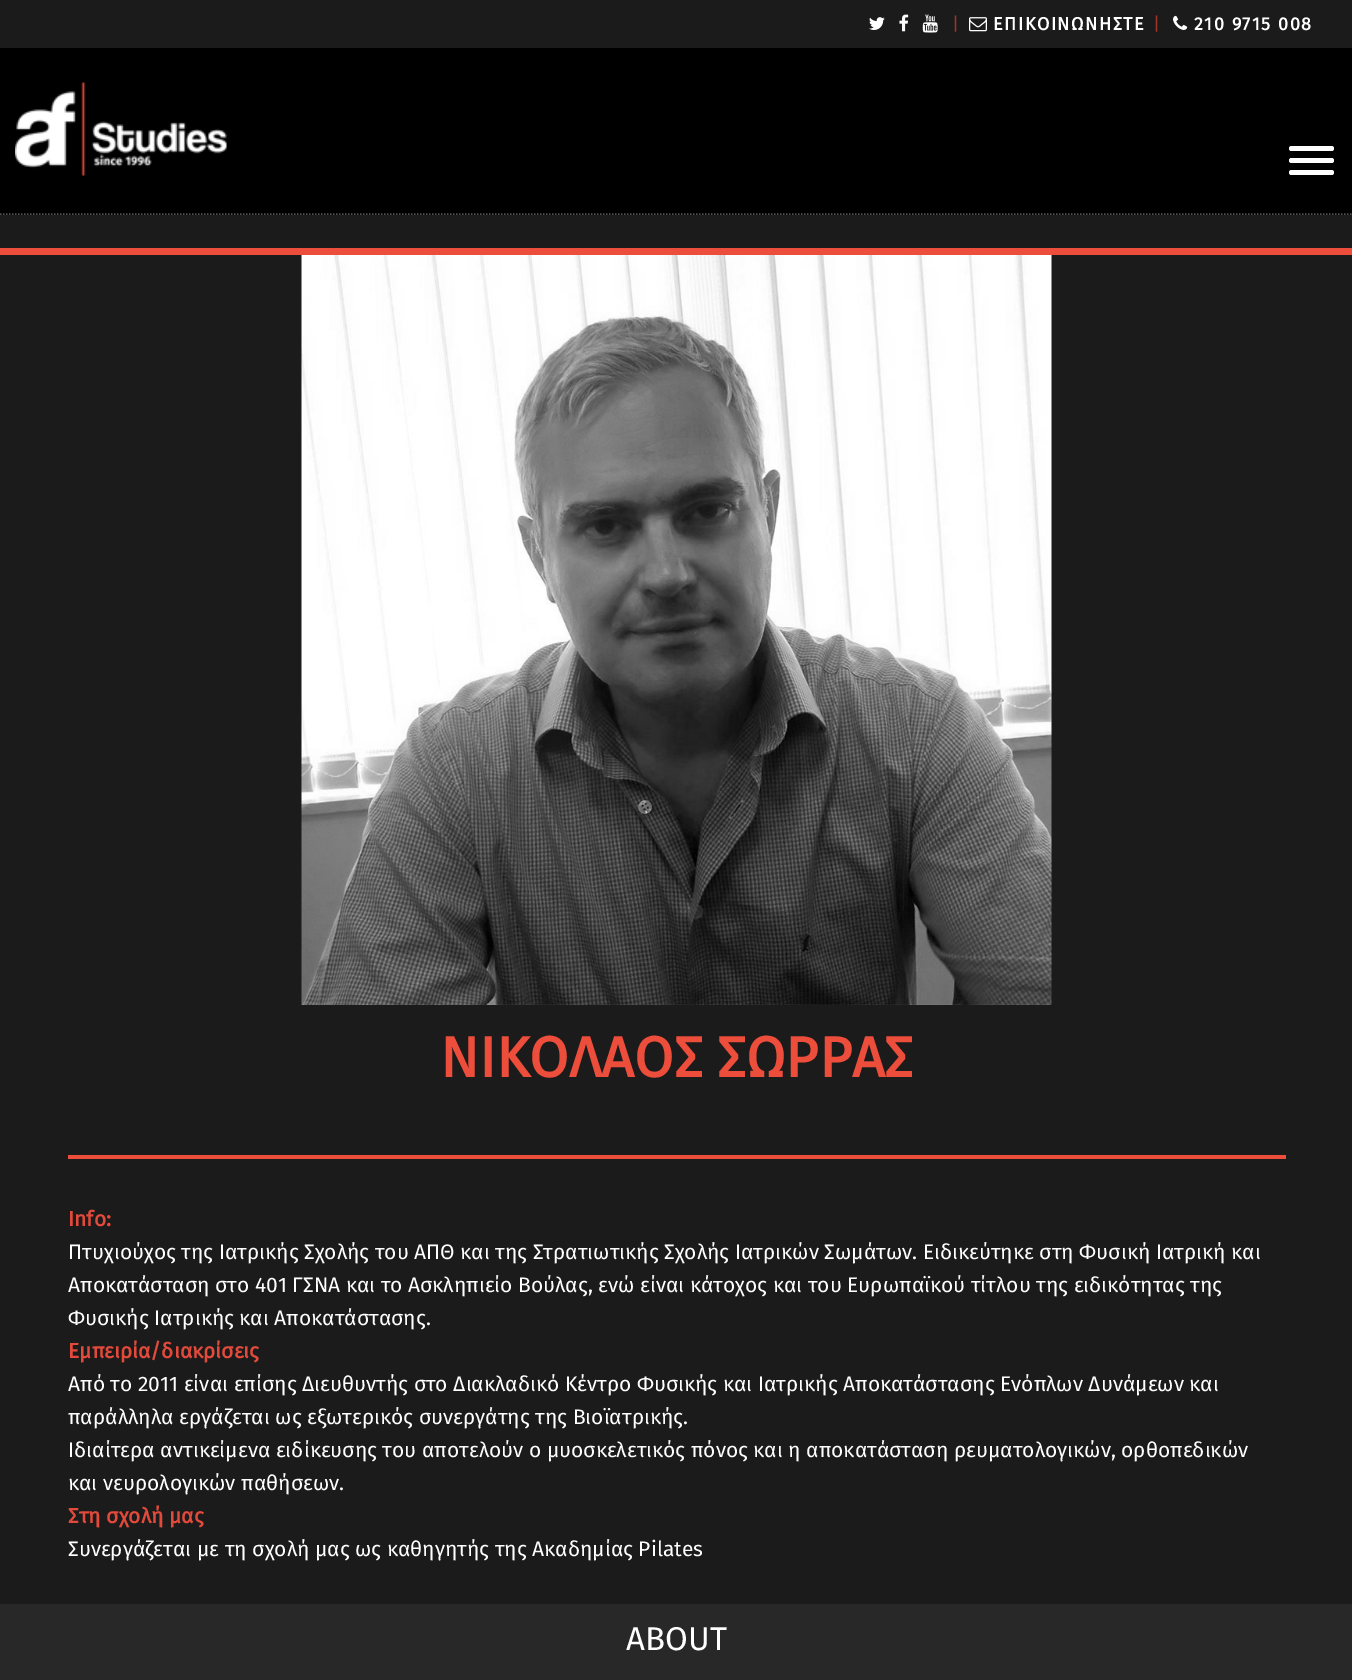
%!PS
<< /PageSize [1352 1680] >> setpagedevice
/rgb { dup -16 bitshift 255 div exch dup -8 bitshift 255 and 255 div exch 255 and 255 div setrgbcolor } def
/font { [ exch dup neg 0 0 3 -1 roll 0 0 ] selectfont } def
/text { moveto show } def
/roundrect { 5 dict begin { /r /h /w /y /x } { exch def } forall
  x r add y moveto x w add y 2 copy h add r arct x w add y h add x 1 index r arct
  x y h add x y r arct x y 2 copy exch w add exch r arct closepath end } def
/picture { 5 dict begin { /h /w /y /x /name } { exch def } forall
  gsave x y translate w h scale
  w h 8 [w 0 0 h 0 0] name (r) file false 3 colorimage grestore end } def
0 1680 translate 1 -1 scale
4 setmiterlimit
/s1 { /FiraSans-Regular 18 font 16#A43426 rgb } def
/s2 { /FiraSans-Bold 57 font 16#ED4D3B rgb } def
/s3 { /FiraSans-Bold 21 font 16#E44A3B rgb } def
/s4 { /FiraSans-Regular 21 font 16#FFFFFF rgb } def
/s5 { /FiraSans-Regular 33 font 16#FFFFFF rgb } def
16#1B1B1B rgb
0 0 1352 1680 rectfill
(pic1.raw) 869 17 16 13 picture
(pic2.raw) 899 14 10 18 picture
(pic3.raw) 922 14 16 19 picture
s1
(|) 952 30 text
(pic4.raw) 969 17 18 15 picture
/FiraSans-Bold 18 font
16#FFFFFF rgb
993 30 moveto 1.5 0 (ΕΠΙΚΟΙΝΩΝΗΣΤΕ) ashow
s1
(|) 1153 30 text
(pic5.raw) 1173 15 15 15 picture
/FiraSans-Bold 18 font
16#FFFFFF rgb
1194 30 moveto 1.5 0 (210 9715 008) ashow
16#000000 rgb
0 48 1352 167 rectfill
16#525252 rgb
1.5 setlinewidth
[1.5 1.5] 0 setdash
0 214 moveto 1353 214 lineto stroke
(pic6.raw) 15 82 212 94 picture
16#FFFFFF rgb
1289 146 45 5 2.5 roundrect fill
1289 158 45 5 2.5 roundrect fill
1289 170 45 5 2.5 roundrect fill
16#ED4D3B rgb
0 248 1352 7 rectfill
(pic7.raw) 301 255 751 750 picture
s2
(ΝΙΚΟΛΑΟΣ ΣΩΡΡΑΣ) 440 1077 text
68 1155 1218 4 rectfill
s3
(Info:) 68 1226 text
s4
(Πτυχιούχος της Ιατρικής Σχολής του ΑΠΘ και της Στρατιωτικής Σχολής Ιατρικών Σωμάτων. Ειδικεύτηκε στη Φυσική Ιατρική και) 68 1259 text
(Αποκατάσταση στο 401 ΓΣΝΑ και το Ασκληπιείο Βούλας, ενώ είναι κάτοχος και του Ευρωπαϊκού τίτλου της ειδικότητας της) 68 1292 text
(Φυσικής Ιατρικής και Αποκατάστασης.) 68 1325 text
s3
(Εμπειρία/διακρίσεις) 68 1358 text
s4
(Από το 2011 είναι επίσης Διευθυντής στο Διακλαδικό Κέντρο Φυσικής και Ιατρικής Αποκατάστασης Ενόπλων Δυνάμεων και) 68 1391 text
(παράλληλα εργάζεται ως εξωτερικός συνεργάτης της Βιοϊατρικής.) 68 1424 text
(Ιδιαίτερα αντικείμενα ειδίκευσης του αποτελούν ο μυοσκελετικός πόνος και η αποκατάσταση ρευματολογικών, ορθοπεδικών) 68 1457 text
(και νευρολογικών παθήσεων.) 68 1490 text
s3
(Στη σχολή μας) 68 1523 text
s4
(Συνεργάζεται με τη σχολή μας ως καθηγητής της Ακαδημίας Pilates) 68 1556 text
16#282828 rgb
0 1604 1352 76 rectfill
s5
(ABOUT) 626 1650 text
showpage
